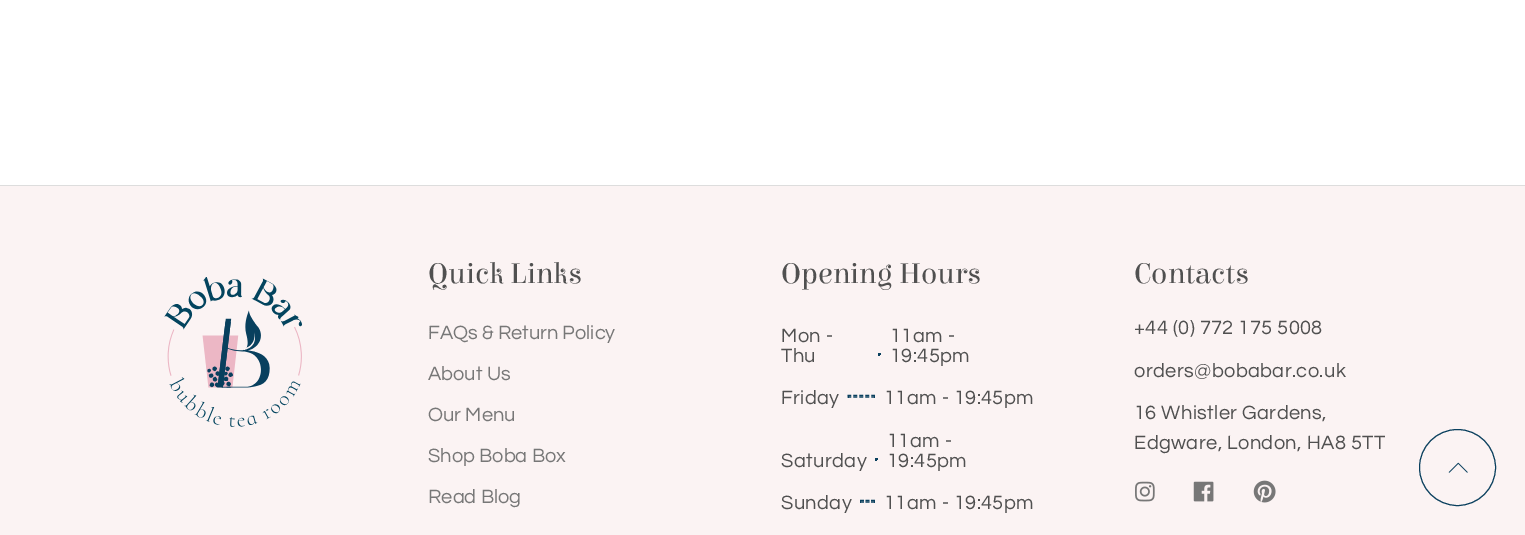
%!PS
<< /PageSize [1525 535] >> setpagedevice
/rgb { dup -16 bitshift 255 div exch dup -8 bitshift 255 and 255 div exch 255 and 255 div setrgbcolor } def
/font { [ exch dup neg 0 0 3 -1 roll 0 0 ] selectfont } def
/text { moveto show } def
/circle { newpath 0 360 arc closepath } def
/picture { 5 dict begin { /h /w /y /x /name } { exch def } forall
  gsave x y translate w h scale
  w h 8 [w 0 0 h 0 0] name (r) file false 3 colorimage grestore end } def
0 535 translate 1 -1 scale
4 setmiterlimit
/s1 { /Elsie-Regular 30 font 16#505050 rgb } def
/s2 { /Questrial-Regular 20 font 16#777777 rgb } def
16#FFFFFF rgb
0 0 1525 535 rectfill
16#FBF3F3 rgb
0 186 1525 349 rectfill
16#DDDDDD rgb
0 185 1525 1 rectfill
(pic1.raw) 164 277 138 150 picture
s1
(Quick Links) 428 283 text
s2
(FAQs & Return Policy) 428 339 text
(About Us) 428 380 text
(Our Menu) 428 421 text
(Shop Boba Box) 428 462 text
(Read Blog) 428 503 text
s1
(Opening Hours) 781 283 text
/Questrial-Regular 20 font
781 342 moveto 0.4 0 (Mon -) ashow
781 362 moveto 0.4 0 (Thu) ashow
16#0A405E rgb
878 353 3 1 rectfill
879 353 1 3 rectfill
878 354 3 1 rectfill
878 353 1 3 rectfill
16#505050 rgb
890 342 moveto 0.4 0 (11am -) ashow
890 362 moveto 0.4 0 (19:45pm) ashow
781 404 moveto 0.4 0 (Friday) ashow
16#0A405E rgb
1.2 setlinewidth
[3.75 2.19] 0 setdash
847.5 395.5 moveto 875 395.5 lineto stroke
874 395 1 3 rectfill
847.5 397 moveto 875 397 lineto stroke
848 395 1 3 rectfill
16#505050 rgb
884 404 moveto 0.4 0 (11am - 19:45pm) ashow
781 467 moveto 0.4 0 (Saturday) ashow
16#0A405E rgb
875 458 3 1 rectfill
876 458 1 3 rectfill
875 459 3 1 rectfill
875 458 1 3 rectfill
16#505050 rgb
887 447 moveto 0.4 0 (11am -) ashow
887 467 moveto 0.4 0 (19:45pm) ashow
781 509 moveto 0.4 0 (Sunday) ashow
16#0A405E rgb
[] 0 setdash
860 500.5 moveto 864 500.5 lineto 865.5 500.5 moveto 869.5 500.5 lineto 871 500.5 moveto 875 500.5 lineto stroke
874 500 1 3 rectfill
860 502 moveto 864 502 lineto 865.5 502 moveto 869.5 502 lineto 871 502 moveto 875 502 lineto stroke
860 500 1 3 rectfill
16#505050 rgb
884 509 moveto 0.4 0 (11am - 19:45pm) ashow
s1
(Contacts) 1134 283 text
/Questrial-Regular 20 font
1134 334 moveto 0.4 0 (+44 \(0\) 772 175 5008) ashow
1134 377 moveto 0.4 0 (orders@bobabar.co.uk) ashow
1134 419 moveto 0.4 0 (16 Whistler Gardens,) ashow
1134 449 moveto 0.4 0 (Edgware, London, HA8 5TT) ashow
(pic2.raw) 1135 481 20 21 picture
(pic3.raw) 1193 481 21 21 picture
(pic4.raw) 1253 480 23 23 picture
(pic5.raw) 1448 462 20 11 picture
16#0A405E rgb
1 setlinewidth
1457.5 467.5 38 circle stroke
showpage
